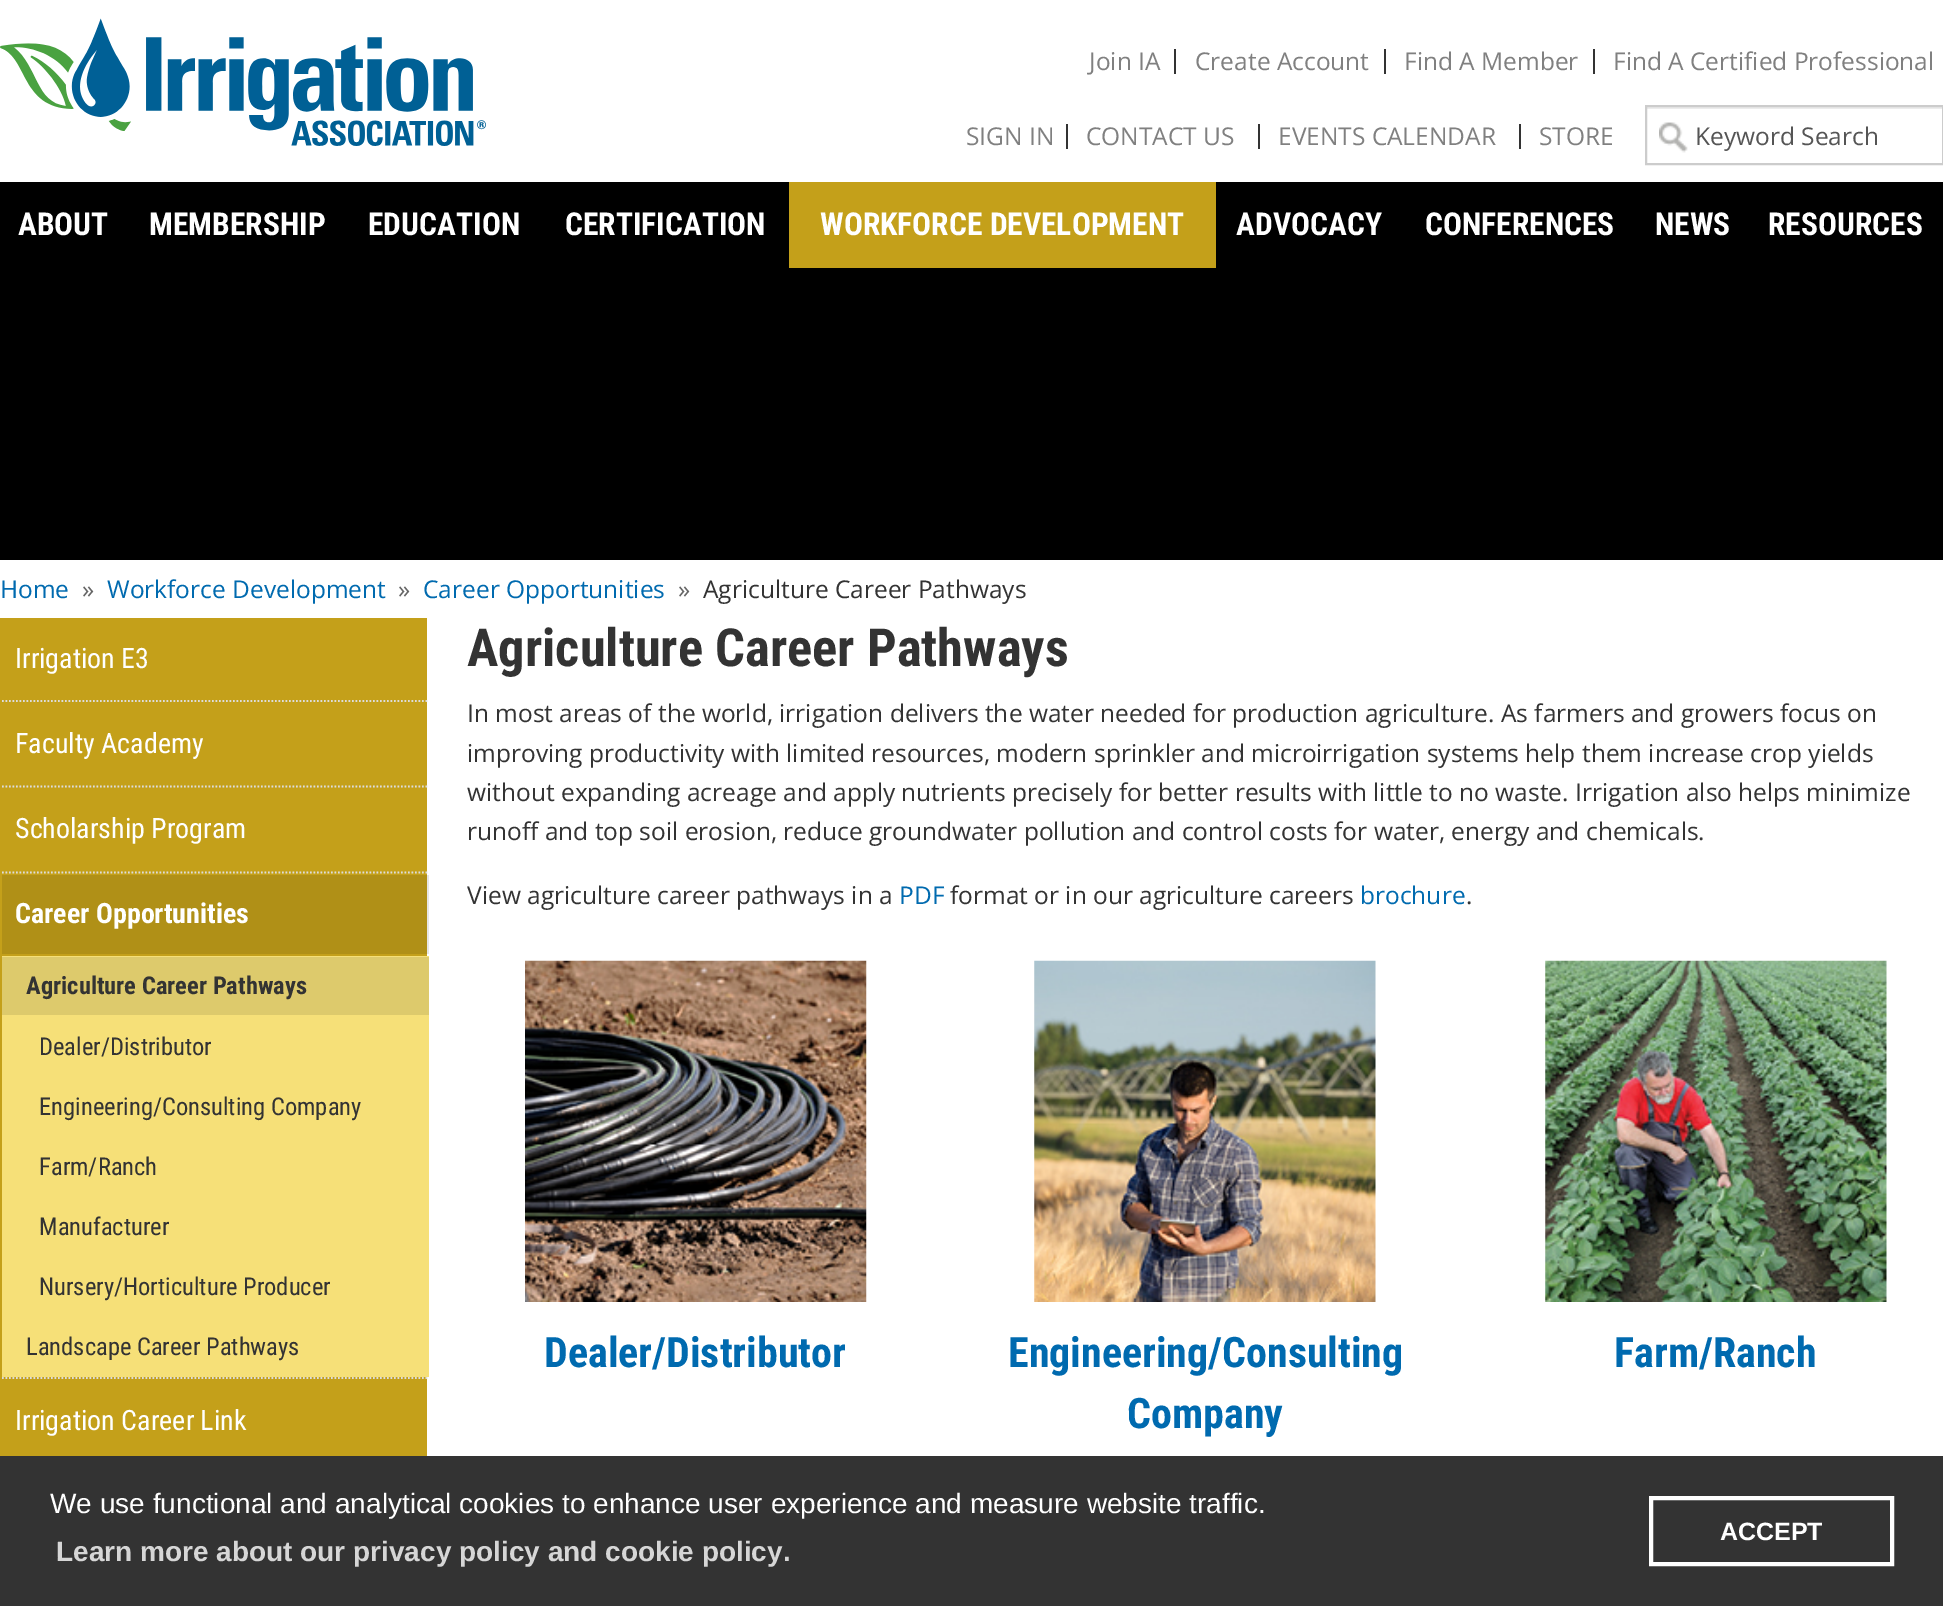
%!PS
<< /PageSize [1943 1606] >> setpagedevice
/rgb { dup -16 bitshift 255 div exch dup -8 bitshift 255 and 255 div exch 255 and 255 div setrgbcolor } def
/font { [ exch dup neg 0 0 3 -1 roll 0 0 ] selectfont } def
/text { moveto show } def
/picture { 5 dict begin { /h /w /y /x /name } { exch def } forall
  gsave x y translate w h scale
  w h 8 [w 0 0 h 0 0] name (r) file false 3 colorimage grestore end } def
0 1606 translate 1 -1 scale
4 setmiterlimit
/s1 { /OpenSans-Regular 24.5 font 16#808080 rgb } def
/s2 { /OpenSans-Regular 24.5 font 16#555555 rgb } def
/s3 { /RobotoCondensed-Bold 31.5 font 16#FFFFFF rgb } def
/s4 { /OpenSans-Regular 24.5 font 16#006AAF rgb } def
/s5 { /OpenSans-Regular 24.5 font 16#666666 rgb } def
/s6 { /OpenSans-Regular 24.5 font 16#333333 rgb } def
/s7 { /RobotoCondensed-Regular 28 font 16#FFFFFF rgb } def
/s8 { /RobotoCondensed-Bold 28 font 16#FFFFFF rgb } def
/s9 { /RobotoCondensed-Bold 24.5 font 16#333333 rgb } def
/s10 { /RobotoCondensed-Regular 24.5 font 16#333333 rgb } def
/s11 { /RobotoCondensed-Bold 52.5 font 16#333333 rgb } def
/s12 { /RobotoCondensed-Bold 42 font 16#006AAF rgb } def
/s13 { /LiberationSans-Regular 28 font 16#FFFFFF rgb } def
/s14 { /LiberationSans-Bold 28 font 16#D6D6D6 rgb } def
/s15 { /LiberationSans-Bold 25 font 16#FFFFFF rgb } def
16#FFFFFF rgb
0 0 1943 1606 rectfill
16#E6E6E6 rgb
427 875 2 79 rectfill
(pic1.raw) 0 18 486 128 picture
s1
(Join IA) 1089 70 text
16#333333 rgb
1174 49 2 25 rectfill
s1
(Create Account) 1195 70 text
16#333333 rgb
1384 49 2 25 rectfill
s1
(Find A Member) 1404 70 text
16#333333 rgb
1593 49 2 25 rectfill
s1
(Find A Certified Professional) 1613 70 text
(SIGN IN) 966 145 text
16#333333 rgb
1066 124 2 25 rectfill
s1
(CONTACT US) 1086 145 text
16#333333 rgb
1258 124 2 25 rectfill
s1
(EVENTS CALENDAR) 1278 145 text
16#333333 rgb
1519 124 2 25 rectfill
s1
(STORE) 1539 145 text
(pic2.raw) 1659 122 29 31 picture
16#ECECEC rgb
1647 107 296 2 rectfill
16#CCCCCC rgb
2 setlinewidth
1646 106 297 58 rectstroke
s2
(Keyword Search) 1695 145 text
16#000000 rgb
0 182 1943 378 rectfill
s3
(ABOUT) 18 235 text
(MEMBERSHIP) 149 235 text
(EDUCATION) 368 235 text
(CERTIFICATION) 565 235 text
16#C4A01A rgb
789 182 427 86 rectfill
s3
(WORKFORCE DEVELOPMENT) 820 235 text
(ADVOCACY) 1236 235 text
(CONFERENCES) 1425 235 text
(NEWS) 1655 235 text
(RESOURCES) 1768 235 text
s4
(Home) 0 598 text
s5
(») 82 598 text
s4
(Workforce Development) 107 598 text
s5
(») 398 598 text
s4
(Career Opportunities) 423 598 text
s5
(») 678 598 text
s6
(Agriculture Career Pathways) 703 598 text
16#C4A01A rgb
0 618 427 838 rectfill
16#B09017 rgb
2 875 425 79 rectfill
s7
(Irrigation E3) 15 668 text
16#DDDDDD rgb
1.8 setlinewidth
[1.75 1.75] 0 setdash
2 701 moveto 429 701 lineto stroke
s7
(Faculty Academy) 15 753 text
16#DDDDDD rgb
2 786.5 moveto 429 786.5 lineto stroke
s7
(Scholarship Program) 15 838 text
16#DDDDDD rgb
2 872.5 moveto 429 872.5 lineto stroke
s8
(Career Opportunities) 15 923 text
16#F6E078 rgb
2 956 427 421 rectfill
16#DDCA6C rgb
2 957 427 58 rectfill
s9
(Agriculture Career Pathways) 26 994 text
s10
(Dealer/Distributor) 39 1055 text
(Engineering/Consulting Company) 39 1115 text
(Farm/Ranch) 39 1175 text
(Manufacturer) 39 1235 text
(Nursery/Horticulture Producer) 39 1295 text
(Landscape Career Pathways) 26 1355 text
16#DDDDDD rgb
2 1378 moveto 429 1378 lineto stroke
s7
(Irrigation Career Link) 15 1430 text
s11
(Agriculture Career Pathways) 467 666 text
s6
(In most areas of the world, irrigation delivers the water needed for production agriculture. As farmers and growers focus on) 467 722 text
(improving productivity with limited resources, modern sprinkler and microirrigation systems help them increase crop yields) 467 762 text
(without expanding acreage and apply nutrients precisely for better results with little to no waste. Irrigation also helps minimize) 467 801 text
(runoff and top soil erosion, reduce groundwater pollution and control costs for water, energy and chemicals.) 467 840 text
(View agriculture career pathways in a) 467 904 text
s4
(PDF) 899 904 text
s6
(format or in our agriculture careers) 950 904 text
s4
(brochure) 1360 904 text
s6
(.) 1466 904 text
(pic3.raw) 525 960 342 342 picture
s12
(Dealer/Distributor) 544 1367 text
(pic4.raw) 1034 960 342 342 picture
(Engineering/Consulting) 1008 1367 text
(Company) 1127 1428 text
(pic5.raw) 1545 960 342 342 picture
(Farm/Ranch) 1614 1367 text
16#333333 rgb
0 1456 1943 150 rectfill
s13
(We use functional and analytical cookies to enhance user experience and measure website traffic.) 50 1513 text
s14
(Learn more about our privacy policy and cookie policy.) 56 1561 text
16#FFFFFF rgb
4 setlinewidth
[] 0 setdash
1651 1498 241 66 rectstroke
s15
(ACCEPT) 1720 1540 text
showpage
